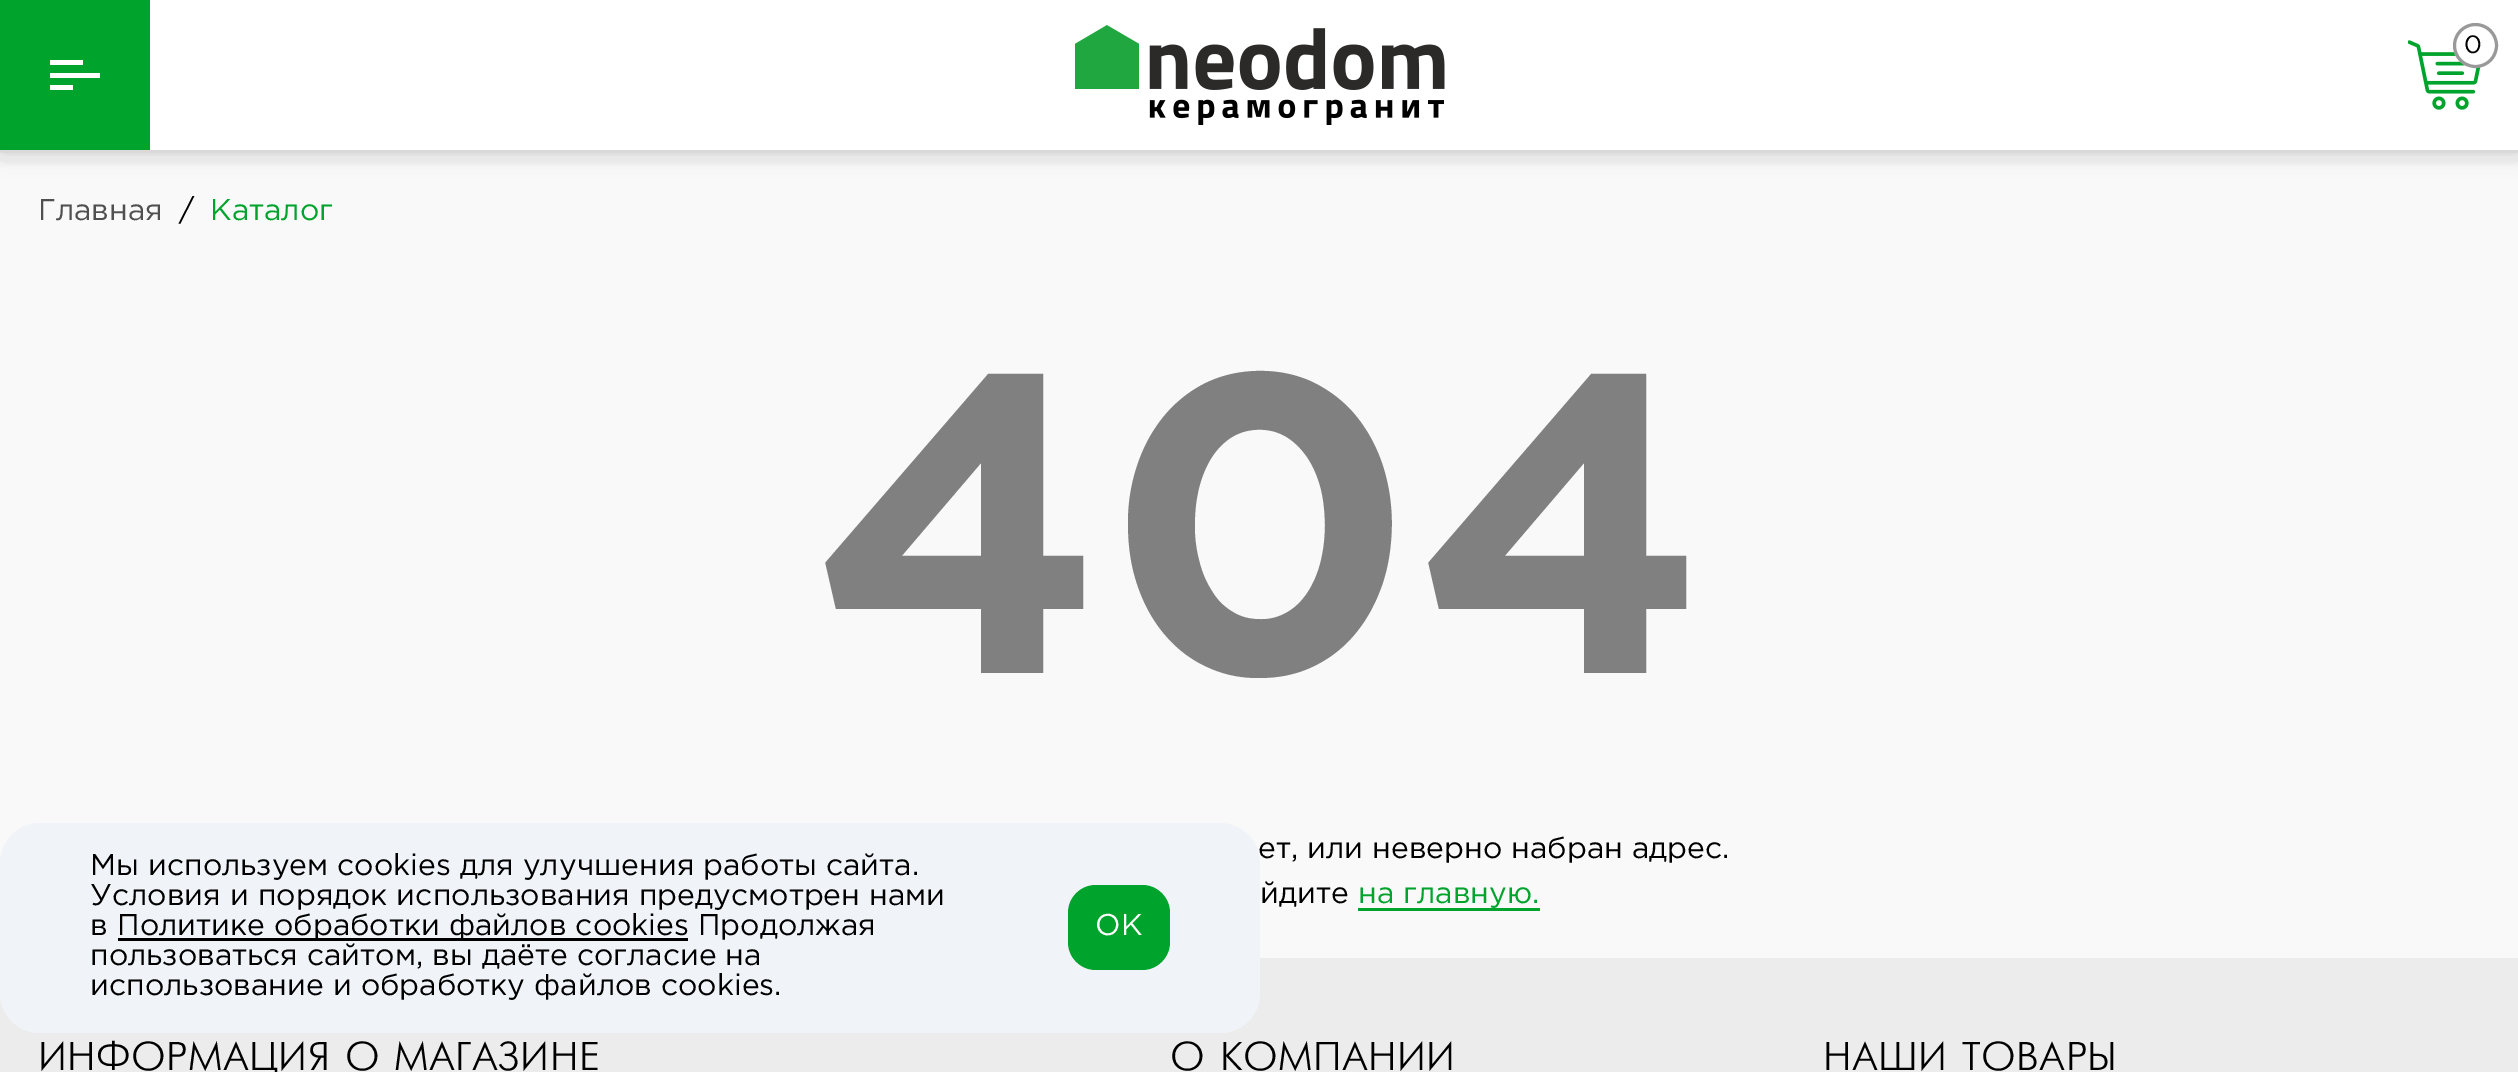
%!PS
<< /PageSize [2518 1072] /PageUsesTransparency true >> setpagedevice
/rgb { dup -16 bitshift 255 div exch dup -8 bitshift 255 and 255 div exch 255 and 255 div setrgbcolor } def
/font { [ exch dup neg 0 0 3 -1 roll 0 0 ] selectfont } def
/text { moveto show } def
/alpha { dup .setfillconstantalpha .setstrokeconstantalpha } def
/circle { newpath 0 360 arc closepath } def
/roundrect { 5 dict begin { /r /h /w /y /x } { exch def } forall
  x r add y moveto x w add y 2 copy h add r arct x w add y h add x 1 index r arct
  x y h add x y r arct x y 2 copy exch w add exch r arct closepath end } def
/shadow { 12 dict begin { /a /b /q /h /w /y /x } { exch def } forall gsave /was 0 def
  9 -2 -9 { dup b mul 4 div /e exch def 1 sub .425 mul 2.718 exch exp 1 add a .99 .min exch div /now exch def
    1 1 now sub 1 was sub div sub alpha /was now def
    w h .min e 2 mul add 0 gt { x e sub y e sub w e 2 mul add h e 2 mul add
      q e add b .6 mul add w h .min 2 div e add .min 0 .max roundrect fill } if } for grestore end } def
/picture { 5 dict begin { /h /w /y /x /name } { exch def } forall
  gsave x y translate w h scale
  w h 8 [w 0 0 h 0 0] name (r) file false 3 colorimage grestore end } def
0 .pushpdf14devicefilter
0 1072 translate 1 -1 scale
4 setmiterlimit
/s1 { /Gotham-Regular 25 font 16#000000 rgb } def
/s2 { /Gotham-Regular 30 font 16#505050 rgb } def
/s3 { /Gotham-Regular 30 font 16#000000 rgb } def
/s4 { /Gotham-Regular 30 font 16#00A32C rgb } def
/s5 { /Gotham-Bold 425 font 16#808080 rgb } def
/s6 { /Gotham-Regular 30 font 16#FFFFFF rgb } def
16#F9F9F9 rgb
0 0 2518 1072 rectfill
16#000000 rgb
0 0 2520 153 0 12.5 0.1 shadow
16#FFFFFF rgb
150 0 2368 150 rectfill
16#E5E5E5 rgb
0 150 2518 3 rectfill
gsave
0 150 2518 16 rectclip
16#000000 rgb
0 0 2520 150 0 19 0.1 shadow
grestore
16#00A32C rgb
0 0 150 150 rectfill
16#FFFFFF rgb
50 73 50 5 rectfill
50 60 33 5 rectfill
50 85 23 5 rectfill
(pic1.raw) 1075 25 370 100 picture
(pic2.raw) 2408 40 73 70 picture
2475.5 45.5 22.5 circle fill
0.4 alpha
16#000000 rgb
3 setlinewidth
2475.5 45.5 21 circle stroke
1 alpha
s1
(0) 2464 53 text
s2
(Главная) 38 220 text
s3
(/) 179 220 text
s4
(Каталог) 210 220 text
s5
(404) 812 673 text
s3
(ет, или неверно набран адрес.) 1258 858 text
(йдите) 1260 903 text
s4
(на главную.) 1358 903 text
1358 908 182 3 rectfill
16#ECECEC rgb
0 958 2518 114 rectfill
16#F0F4F9 rgb
0 823 1260 210 40 roundrect fill
s3
(Мы используем cookies для улучшения работы сайта.) 90 875 text
(Условия и порядок использования предусмотрен нами) 90 905 text
(в) 90 935 text
118 938 570 3 rectfill
(Политике обработки файлов cookies Продолжая) 117 935 text
(пользоваться сайтом, вы даёте согласие на) 90 965 text
(использование и обработку файлов cookies.) 90 995 text
16#00A32C rgb
1068 885 102 85 28 roundrect fill
s6
(OK) 1095 935 text
/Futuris-Regular 40 font
16#000000 rgb
38 1070 moveto 0.4 0 (ИНФОРМАЦИЯ О МАГАЗИНЕ) ashow
1170 1070 moveto 0.4 0 (О КОМПАНИИ) ashow
1823 1070 moveto 0.4 0 (НАШИ ТОВАРЫ) ashow
.poppdf14devicefilter showpage
